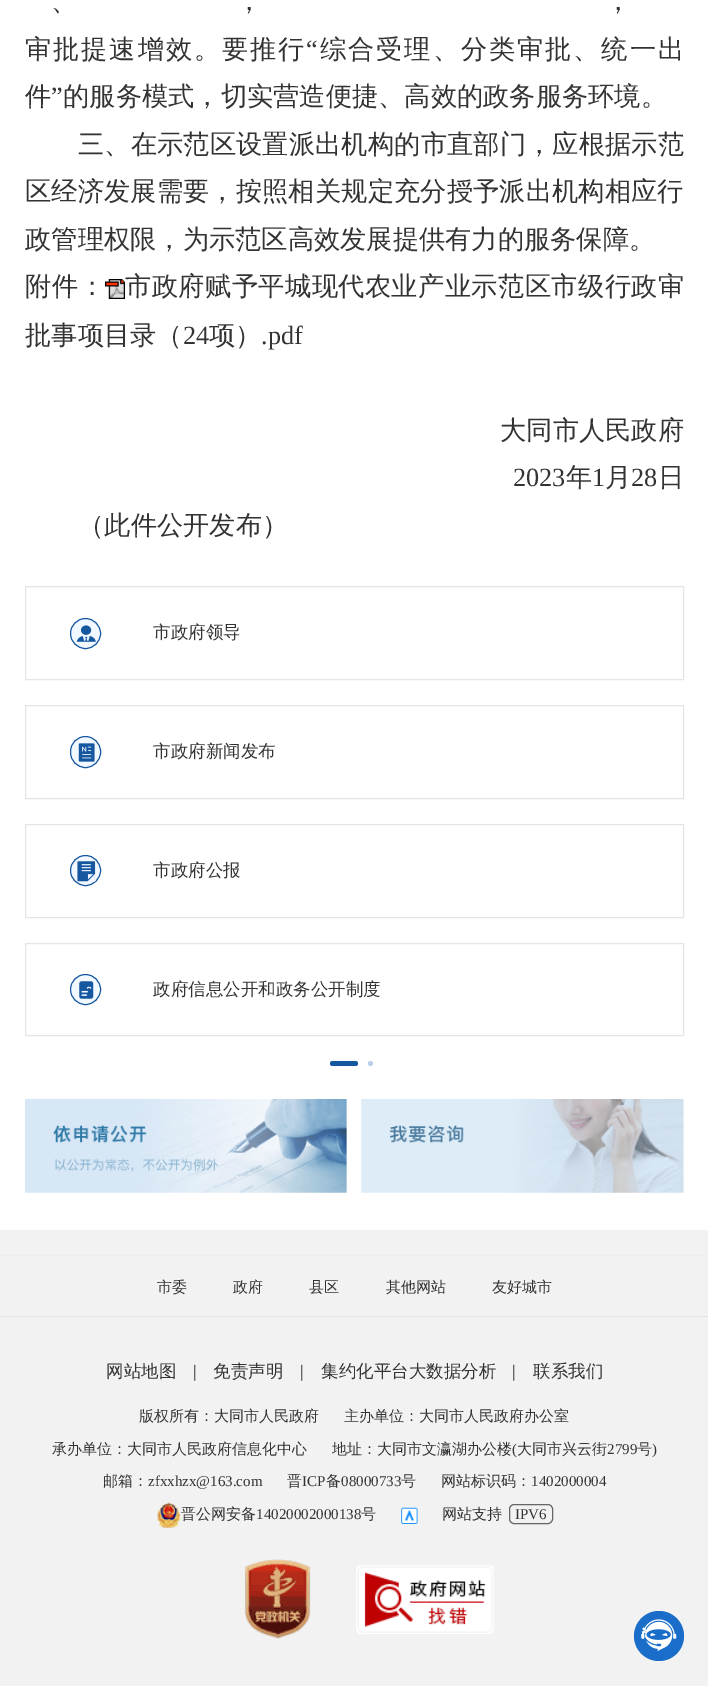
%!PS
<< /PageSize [708 1686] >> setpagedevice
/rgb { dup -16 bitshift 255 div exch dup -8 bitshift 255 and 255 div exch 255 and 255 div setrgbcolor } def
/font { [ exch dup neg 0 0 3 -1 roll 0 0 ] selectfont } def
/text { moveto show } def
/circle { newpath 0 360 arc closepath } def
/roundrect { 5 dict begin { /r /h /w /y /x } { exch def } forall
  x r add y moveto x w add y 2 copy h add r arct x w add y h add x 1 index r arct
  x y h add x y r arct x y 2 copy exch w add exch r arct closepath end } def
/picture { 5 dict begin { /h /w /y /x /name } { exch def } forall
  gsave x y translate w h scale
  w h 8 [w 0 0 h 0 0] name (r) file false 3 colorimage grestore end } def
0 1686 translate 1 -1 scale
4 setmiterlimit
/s1 { /WenQuanYiZenHei-Medium 26.25 font 16#333333 rgb } def
/s2 { /LiberationSerif-Regular 26.25 font 16#333333 rgb } def
/s3 { /WenQuanYiZenHei-Medium 17.5 font 16#333333 rgb } def
/s4 { /WenQuanYiZenHei-Medium 15 font 16#333333 rgb } def
/s5 { /LiberationSerif-Regular 17.5 font 16#333333 rgb } def
/s6 { /LiberationSerif-Regular 15 font 16#333333 rgb } def
16#F2F2F2 rgb
0 0 708 1686 rectfill
16#FFFFFF rgb
0 0 708 1230 rectfill
/WenQuanYiZenHei-Medium 26.25 font
16#333333 rgb
51 10 moveto 0.1 0 (、) ashow
236 10 moveto 0.1 0 (，) ashow
605 10 moveto 0.1 0 (，) ashow
25 58 moveto 1.9 0 (审批提速增效。要推行) ashow
/LiberationSerif-Regular 26.25 font
306 58 moveto 1.9 0 (“) ashow
/WenQuanYiZenHei-Medium 26.25 font
320 58 moveto 1.9 0 (综合受理、分类审批、统一出) ashow
(件) 25 105 text
s2
(”) 51 105 text
s1
(的服务模式，切实营造便捷、高效的政务服务环境。) 63 105 text
78 153 moveto 0.1 0 (三、在示范区设置派出机构的市直部门，应根据示范) ashow
25 200 moveto 0.1 0 (区经济发展需要，按照相关规定充分授予派出机构相应行) ashow
(政管理权限，为示范区高效发展提供有力的服务保障。) 25 248 text
25 295 moveto 0.5 0 (附件：) ashow
(pic1.raw) 105 279 20 20 picture
125 295 moveto 0.4 0 (市政府赋予平城现代农业产业示范区市级行政审) ashow
(批事项目录（) 25 344 text
s2
(24) 183 344 text
s1
(项）) 209 344 text
s2
(.pdf) 261 344 text
s1
(大同市人民政府) 500 439 text
s2
(2023) 513 486 text
s1
(年) 566 486 text
s2
(1) 592 486 text
s1
(月) 605 486 text
s2
(28) 631 486 text
s1
(日) 658 486 text
(（此件公开发布）) 78 534 text
16#E5E5E5 rgb
25.5 586.5 658 93 rectstroke
16#F2F8FF rgb
85.5 633.5 15 circle gsave fill grestore
16#1658A0 rgb
stroke
(pic2.raw) 76 625 20 17 picture
s3
(市政府领导) 153 638 text
16#E5E5E5 rgb
25.5 705.5 658 93 rectstroke
16#F2F8FF rgb
70.5 736.5 30 31 15 roundrect gsave fill grestore
16#1658A0 rgb
stroke
(pic3.raw) 78 743 17 19 picture
s3
(市政府新闻发布) 153 757 text
16#E5E5E5 rgb
25.5 824.5 658 93 rectstroke
16#F2F8FF rgb
85.5 870.5 15 circle gsave fill grestore
16#1658A0 rgb
stroke
(pic4.raw) 77 861 19 21 picture
s3
(市政府公报) 153 876 text
16#E5E5E5 rgb
25.5 943.5 658 92 rectstroke
16#F2F8FF rgb
85.5 989.5 15 circle gsave fill grestore
16#1658A0 rgb
stroke
(pic5.raw) 79 981 15 18 picture
s3
(政府信息公开和政务公开制度) 153 995 text
16#1658A0 rgb
330 1061 28 5 2.5 roundrect fill
16#BAD1E9 rgb
370.5 1063.5 2.5 circle fill
(pic6.raw) 25 1099 322 94 picture
(pic7.raw) 361 1099 323 94 picture
16#EEEEEE rgb
0 1255 708 1 rectfill
s4
(市委) 157 1292 text
(政府) 233 1292 text
(县区) 309 1292 text
(其他网站) 386 1292 text
(友好城市) 492 1292 text
16#E2E2E2 rgb
0 1316 708 1 rectfill
s3
(网站地图) 106 1377 text
s5
(|) 193 1377 text
s3
(免责声明) 213 1377 text
s5
(|) 300 1377 text
s3
(集约化平台大数据分析) 321 1377 text
s5
(|) 512 1377 text
s3
(联系我们) 533 1377 text
s4
(版权所有：大同市人民政府) 139 1421 text
(主办单位：大同市人民政府办公室) 344 1421 text
(承办单位：大同市人民政府信息化中心) 52 1454 text
(地址：大同市文瀛湖办公楼) 332 1454 text
s6
(\() 512 1454 text
s4
(大同市兴云街) 517 1454 text
s6
(2799) 607 1454 text
s4
(号) 637 1454 text
s6
(\)) 652 1454 text
s4
(邮箱：) 103 1486 text
s6
(zfxxhzx@163.com) 148 1486 text
s4
(晋) 287 1486 text
s6
(ICP) 302 1486 text
s4
(备) 326 1486 text
s6
(08000733) 341 1486 text
s4
(号) 401 1486 text
(网站标识码：) 441 1486 text
s6
(1402000004) 531 1486 text
(pic8.raw) 157 1502 24 26 picture
s4
(晋公网安备) 181 1519 text
s6
(14020002000138) 256 1519 text
s4
(号) 361 1519 text
(pic9.raw) 401 1507 17 17 picture
(网站支持) 442 1519 text
16#666666 rgb
509.5 1504.5 43 19 4.5 roundrect stroke
s6
(IPV6) 515 1519 text
(pic10.raw) 244 1559 67 80 picture
(pic11.raw) 356 1565 138 69 picture
16#1A6ECA rgb
659 1636 25 circle fill
(pic12.raw) 641 1619 36 33 picture
showpage
